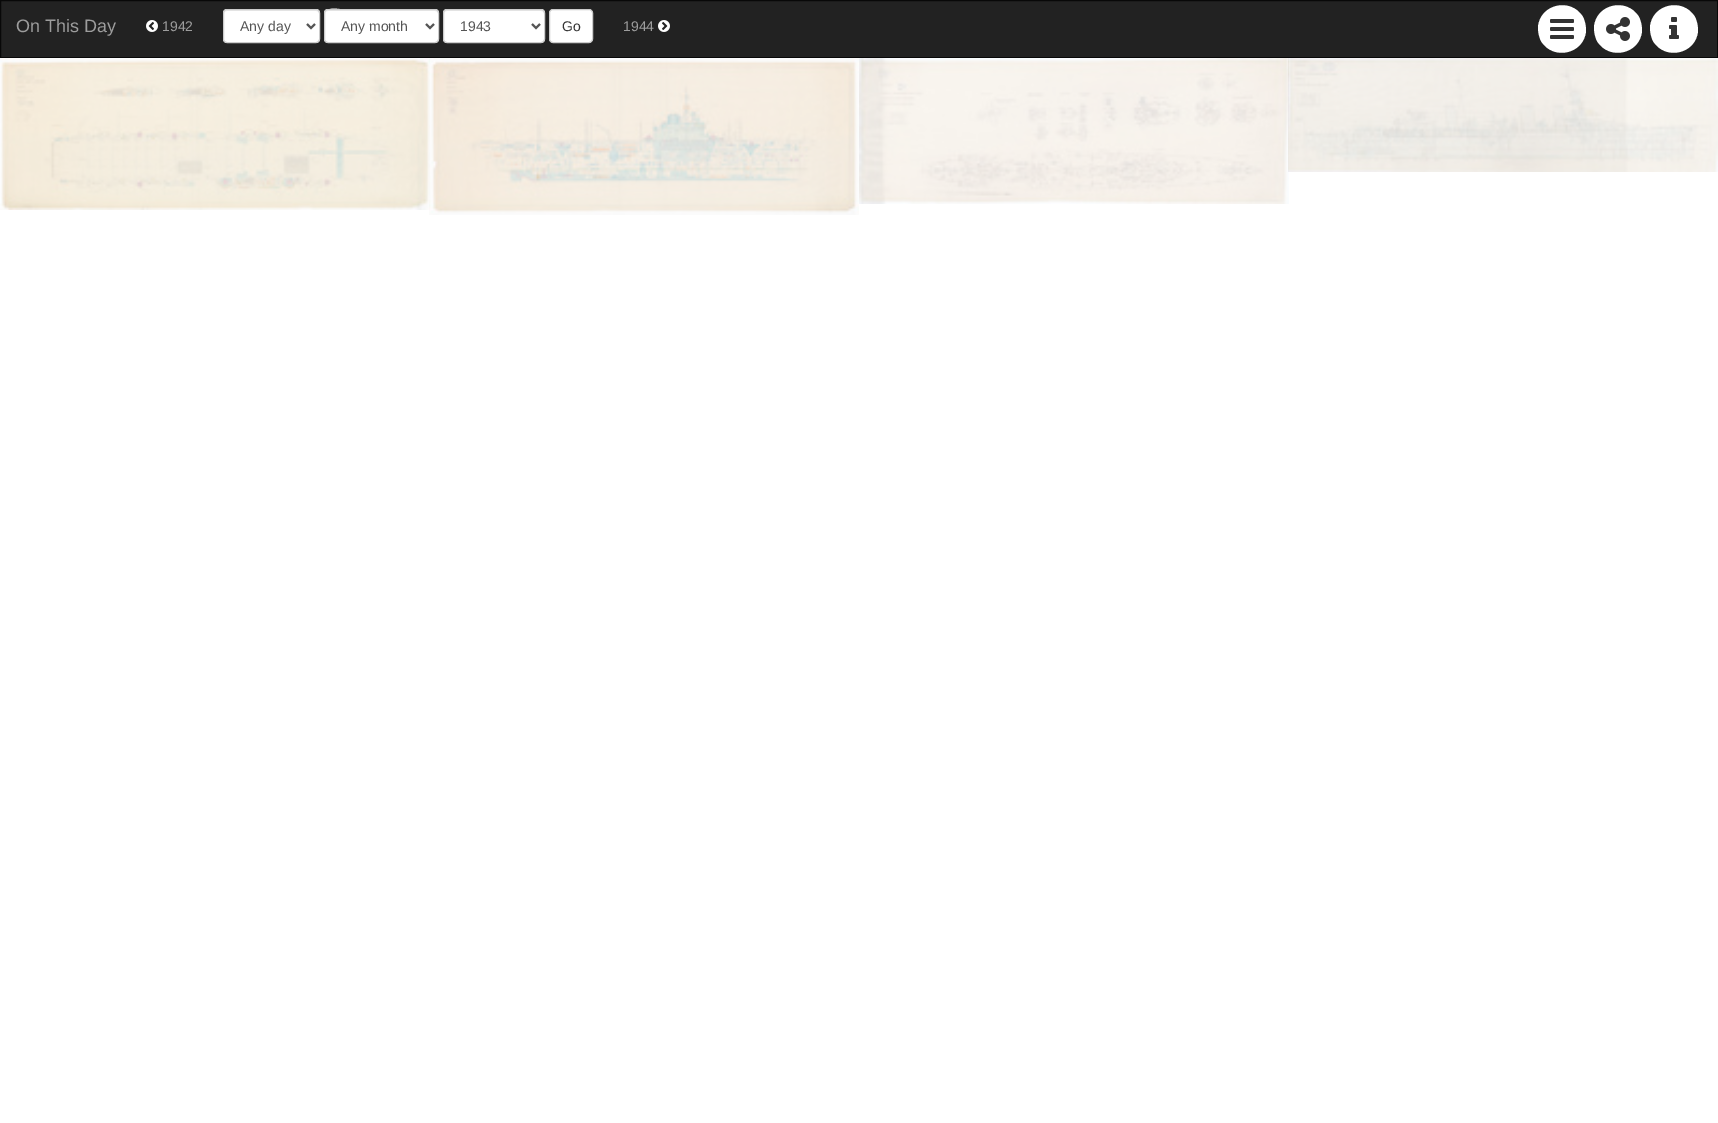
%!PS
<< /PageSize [1718 1123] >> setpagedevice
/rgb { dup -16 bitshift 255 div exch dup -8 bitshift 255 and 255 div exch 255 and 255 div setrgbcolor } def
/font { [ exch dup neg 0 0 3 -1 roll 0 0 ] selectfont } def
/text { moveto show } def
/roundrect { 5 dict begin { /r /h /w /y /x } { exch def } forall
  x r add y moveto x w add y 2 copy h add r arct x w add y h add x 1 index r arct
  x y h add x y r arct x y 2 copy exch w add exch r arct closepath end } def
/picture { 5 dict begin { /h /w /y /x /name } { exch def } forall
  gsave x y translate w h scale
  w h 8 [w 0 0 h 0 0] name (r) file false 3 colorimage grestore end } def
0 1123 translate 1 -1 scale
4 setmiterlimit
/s1 { /LiberationSans-Regular 18 font 16#9D9D9D rgb } def
/s2 { /LiberationSans-Regular 14 font 16#9D9D9D rgb } def
/s3 { /LiberationSans-Regular 14 font 16#555555 rgb } def
/s4 { /LiberationSans-Regular 14 font 16#333333 rgb } def
16#FFFFFF rgb
0 0 1718 1123 rectfill
16#222222 rgb
0.5 0.5 moveto 1717.5 0.5 lineto 1717.5 57.5 lineto 0.5 57.5 lineto closepath gsave fill grestore
16#080808 rgb
stroke
s1
(On This Day) 16 32 text
(pic1.raw) 146 20 12 12 picture
s2
(1942) 162 31 text
16#FFFFFF rgb
223 9 97 34 4 roundrect fill
16#ECECEC rgb
227 11 moveto 316 11 lineto 318 11 319 12 319 14 curveto 319 6 304 10 301 10 curveto 242 10 lineto 239 10 224 6 224 14 curveto 224 12 225 11 227 11 curveto closepath fill
16#CCCCCC rgb
223.5 9.5 96 33 3.5 roundrect stroke
16#555555 rgb
2 setlinewidth
307 24 moveto 311 28 lineto 315 24 lineto stroke
(Any day) 240 31 text
16#FFFFFF rgb
324 9 115 34 4 roundrect fill
16#ECECEC rgb
328 11 moveto 435 11 lineto 437 11 438 12 438 14 curveto 438 12 437 10 435 10 curveto 346 10 lineto 344 10 325 5 325 14 curveto 325 12 326 11 328 11 curveto closepath fill
16#CCCCCC rgb
1 setlinewidth
324.5 9.5 114 33 3.5 roundrect stroke
16#555555 rgb
2 setlinewidth
426 24 moveto 430 28 lineto 434 24 lineto stroke
(Any month) 341 31 text
16#FFFFFF rgb
443 9 102 34 4 roundrect fill
16#ECECEC rgb
447 11 moveto 541 11 lineto 543 11 544 12 544 14 curveto 544 6 528 10 525 10 curveto 463 10 lineto 460 10 444 6 444 14 curveto 444 12 445 11 447 11 curveto closepath fill
16#CCCCCC rgb
1 setlinewidth
443.5 9.5 101 33 3.5 roundrect stroke
16#555555 rgb
2 setlinewidth
532 24 moveto 536 28 lineto 540 24 lineto stroke
(1943) 460 31 text
16#FFFFFF rgb
549.5 9.5 43 33 3.5 roundrect gsave fill grestore
16#CCCCCC rgb
1 setlinewidth
stroke
s4
(Go) 562 31 text
s2
(1944) 623 31 text
(pic2.raw) 658 20 12 12 picture
16#FFFFFF rgb
1583 17 moveto 1585 21 1586 26 1586 31 curveto 1584 54 1553 61 1541 41 curveto 1539 37 1538 32 1538 27 curveto 1540 4 1571 -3 1583 17 curveto closepath fill
(pic3.raw) 1550 19 24 20 picture
1639 17 moveto 1641 21 1642 26 1642 31 curveto 1640 54 1609 61 1597 41 curveto 1595 37 1594 32 1594 27 curveto 1596 4 1627 -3 1639 17 curveto closepath fill
(pic4.raw) 1606 17 24 24 picture
1695 17 moveto 1697 21 1698 26 1698 31 curveto 1696 54 1665 61 1653 41 curveto 1651 37 1650 32 1650 27 curveto 1652 4 1683 -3 1695 17 curveto closepath fill
(pic5.raw) 1669 17 10 22 picture
(pic6.raw) 0 58 430 152 picture
(pic7.raw) 429 58 430 157 picture
(pic8.raw) 859 58 430 146 picture
(pic9.raw) 1288 58 430 114 picture
showpage
